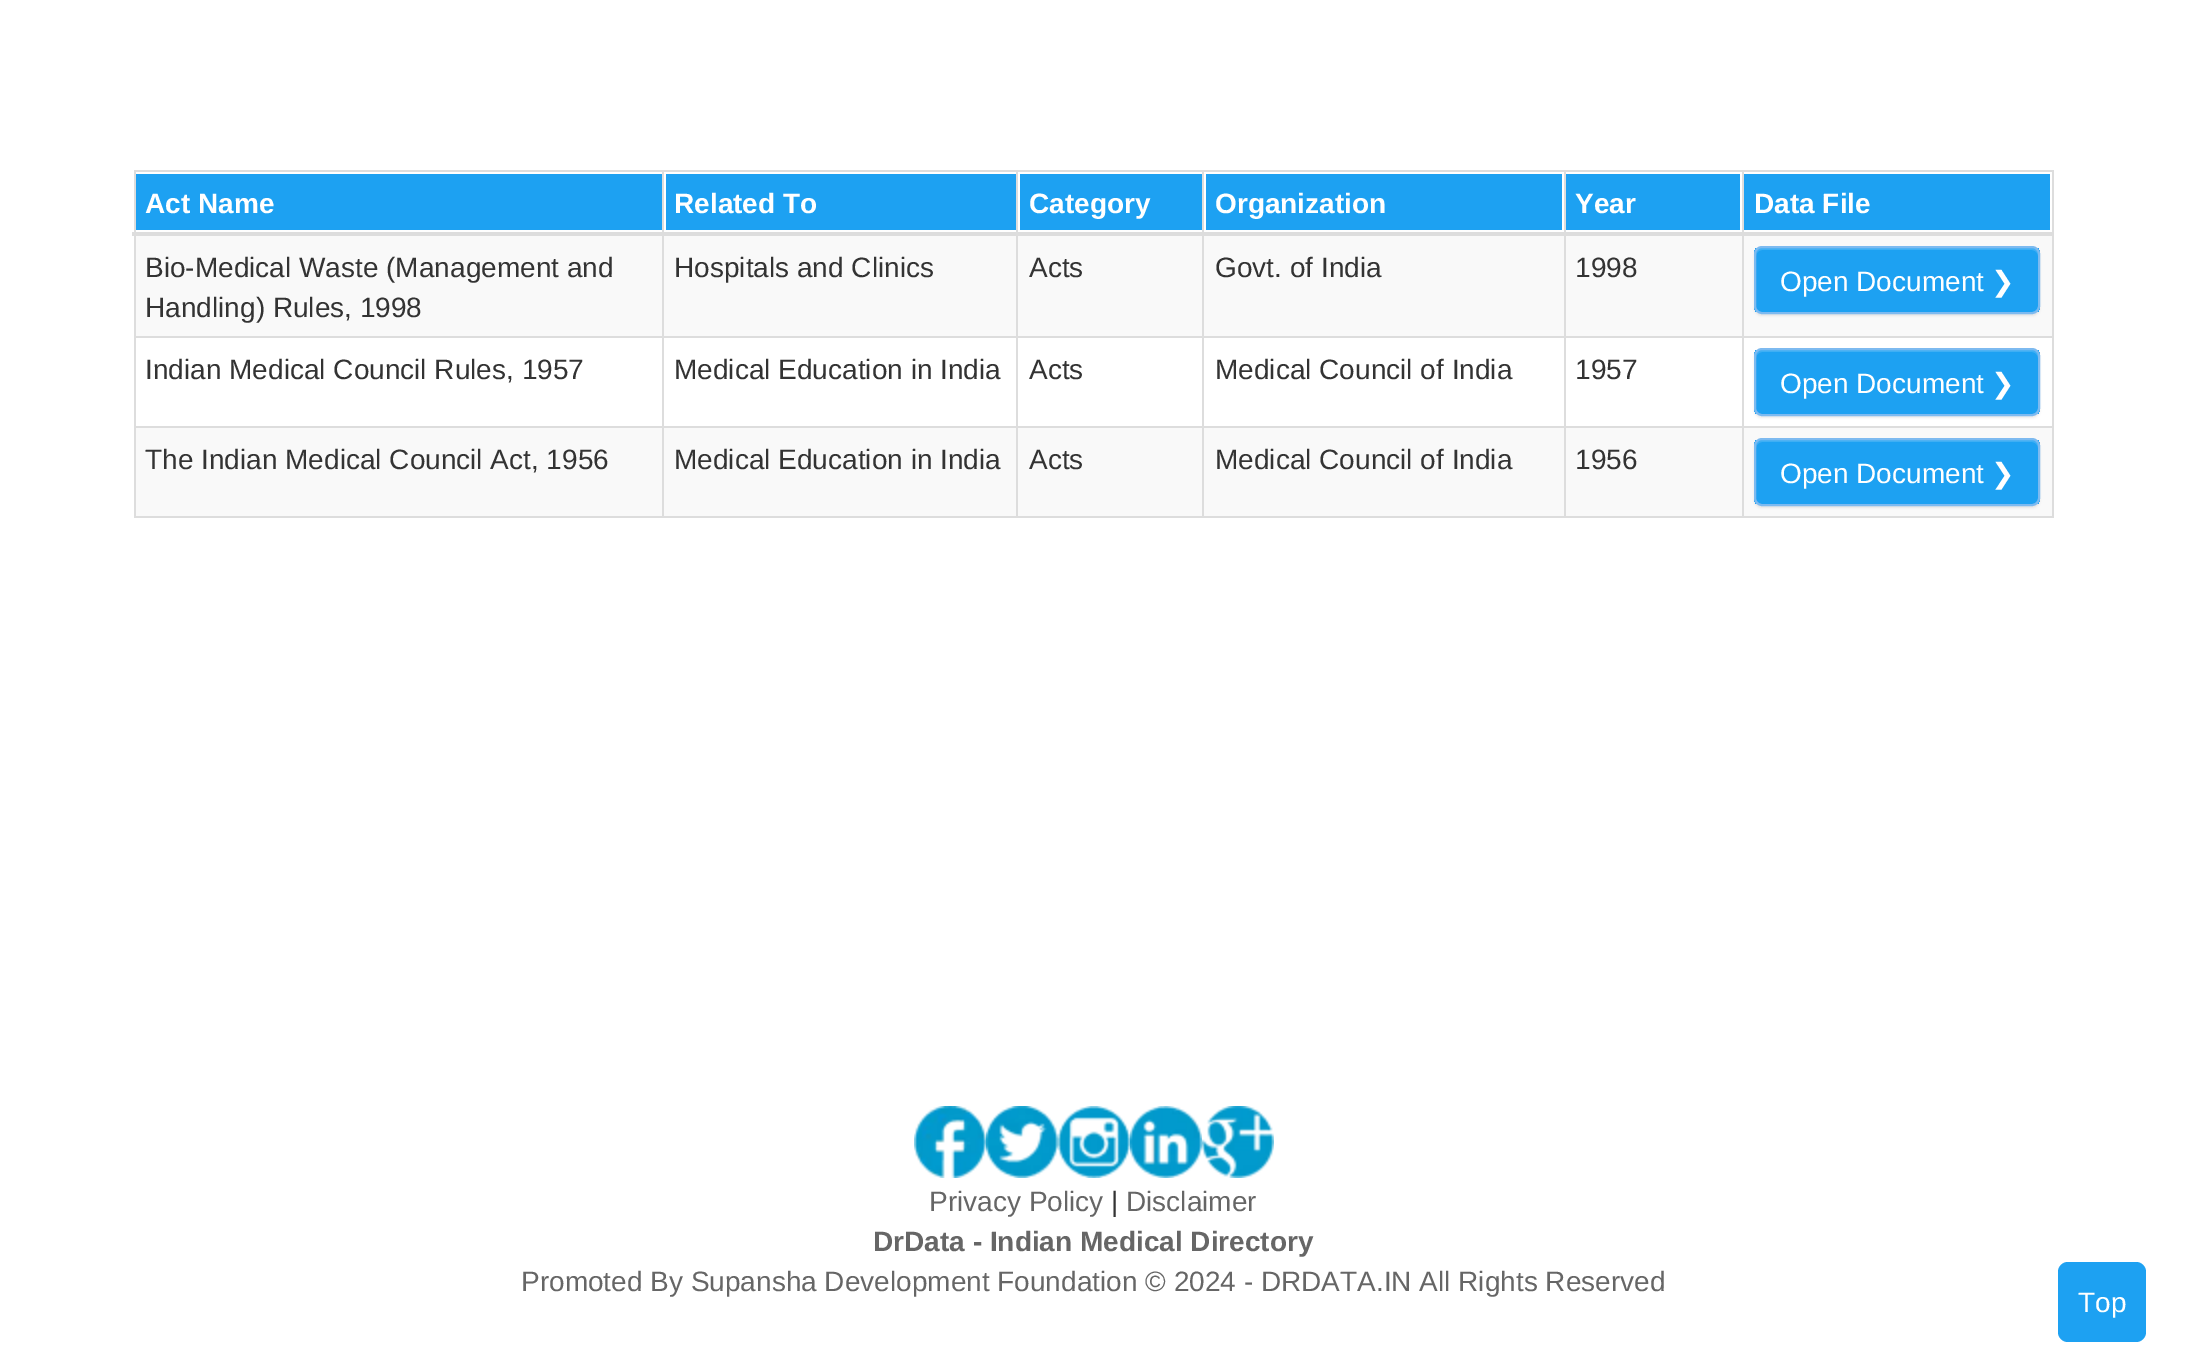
%!PS
<< /PageSize [2186 1361] /PageUsesTransparency true >> setpagedevice
/rgb { dup -16 bitshift 255 div exch dup -8 bitshift 255 and 255 div exch 255 and 255 div setrgbcolor } def
/font { [ exch dup neg 0 0 3 -1 roll 0 0 ] selectfont } def
/text { moveto show } def
/alpha { dup .setfillconstantalpha .setstrokeconstantalpha } def
/roundrect { 5 dict begin { /r /h /w /y /x } { exch def } forall
  x r add y moveto x w add y 2 copy h add r arct x w add y h add x 1 index r arct
  x y h add x y r arct x y 2 copy exch w add exch r arct closepath end } def
/shadow { 12 dict begin { /a /b /q /h /w /y /x } { exch def } forall gsave /was 0 def
  9 -2 -9 { dup b mul 4 div /e exch def 1 sub .425 mul 2.718 exch exp 1 add a .99 .min exch div /now exch def
    1 1 now sub 1 was sub div sub alpha /was now def
    w h .min e 2 mul add 0 gt { x e sub y e sub w e 2 mul add h e 2 mul add
      q e add b .6 mul add w h .min 2 div e add .min 0 .max roundrect fill } if } for grestore end } def
/picture { 5 dict begin { /h /w /y /x /name } { exch def } forall
  gsave x y translate w h scale
  w h 8 [w 0 0 h 0 0] name (r) file false 3 colorimage grestore end } def
0 .pushpdf14devicefilter
0 1361 translate 1 -1 scale
4 setmiterlimit
/s1 { /LiberationSans-Bold 28 font 16#FFFFFF rgb } def
/s2 { /LiberationSans-Regular 28 font 16#333333 rgb } def
/s3 { /LiberationSans-Regular 28 font 16#FFFFFF rgb } def
/s4 { /DejaVuSans-Regular 28 font 16#FFFFFF rgb } def
/s5 { /LiberationSans-Regular 28 font 16#666666 rgb } def
/s6 { /LiberationSans-Bold 28 font 16#666666 rgb } def
16#FFFFFF rgb
0 0 2186 1361 rectfill
16#DDDDDD rgb
134 170 1920 2 rectfill
2052 170 2 348 rectfill
134 516 1920 2 rectfill
134 170 2 348 rectfill
16#1DA1F2 rgb
136 174 526 56 rectfill
s1
(Act Name) 145 213 text
16#1DA1F2 rgb
666 174 350 56 rectfill
s1
(Related To) 674 213 text
16#1DA1F2 rgb
1020 174 182 56 rectfill
s1
(Category) 1029 213 text
16#1DA1F2 rgb
1206 174 356 56 rectfill
s1
(Organization) 1215 213 text
16#1DA1F2 rgb
1566 174 174 56 rectfill
s1
(Year) 1575 213 text
16#1DA1F2 rgb
1744 174 306 56 rectfill
16#DDDDDD rgb
1742 336 312 2 rectfill
1742 426 312 2 rectfill
1742 426 2 92 rectfill
1564 426 180 2 rectfill
1742 336 2 92 rectfill
1564 336 180 2 rectfill
1564 426 2 92 rectfill
1202 426 364 2 rectfill
1564 336 2 92 rectfill
1202 336 364 2 rectfill
1202 426 2 92 rectfill
1016 426 188 2 rectfill
1202 336 2 92 rectfill
1016 336 188 2 rectfill
1016 426 2 92 rectfill
662 426 356 2 rectfill
1016 336 2 92 rectfill
662 336 356 2 rectfill
662 426 2 92 rectfill
134 426 530 2 rectfill
662 336 2 92 rectfill
134 336 530 2 rectfill
662 170 2 168 rectfill
1016 170 2 168 rectfill
1202 170 2 168 rectfill
1564 170 2 168 rectfill
1742 170 2 168 rectfill
132 232 1922 4 rectfill
s1
(Data File) 1754 213 text
16#F9F9F9 rgb
136 236 526 100 rectfill
s2
(Bio-Medical Waste \(Management and) 145 277 text
(Handling\) Rules, 1998) 145 317 text
16#F9F9F9 rgb
664 236 352 100 rectfill
s2
(Hospitals and Clinics) 674 277 text
16#F9F9F9 rgb
1018 236 184 100 rectfill
s2
(Acts) 1029 277 text
16#F9F9F9 rgb
1204 236 360 100 rectfill
s2
(Govt. of India) 1215 277 text
16#F9F9F9 rgb
1566 236 176 100 rectfill
s2
(1998) 1575 277 text
16#F9F9F9 rgb
1744 236 308 100 rectfill
16#000000 rgb
1754 248 286 68 8 1 0.07 shadow
gsave
1754 246 286 68 8 roundrect clip newpath
16#1DA1F2 rgb
1754 248 286 64 rectfill
grestore
16#3FAFF4 rgb
1762 250 moveto 2032 250 lineto 2035 250 2038 253 2038 256 curveto 2038 254 lineto 2038 251 2035 248 2032 248 curveto 1762 248 lineto 1759 248 1756 251 1756 254 curveto 1756 256 lineto 1756 253 1759 250 1762 250 curveto closepath fill
16#7DBAF0 rgb
2 setlinewidth
1755 247 284 66 7 roundrect stroke
s3
(Open Document) 1780 291 text
s4
(❯) 1991 291 text
s2
(Indian Medical Council Rules, 1957) 145 379 text
(Medical Education in India) 674 379 text
(Acts) 1029 379 text
(Medical Council of India) 1215 379 text
(1957) 1575 379 text
16#000000 rgb
1754 350 286 68 8 1 0.07 shadow
gsave
1754 348 286 68 8 roundrect clip newpath
16#1DA1F2 rgb
1754 350 286 64 rectfill
grestore
16#3FAFF4 rgb
1762 352 moveto 2032 352 lineto 2035 352 2038 355 2038 358 curveto 2038 356 lineto 2038 353 2035 350 2032 350 curveto 1762 350 lineto 1759 350 1756 353 1756 356 curveto 1756 358 lineto 1756 355 1759 352 1762 352 curveto closepath fill
16#7DBAF0 rgb
1755 349 284 66 7 roundrect stroke
s3
(Open Document) 1780 393 text
s4
(❯) 1991 393 text
16#F9F9F9 rgb
136 428 526 88 rectfill
s2
(The Indian Medical Council Act, 1956) 145 469 text
16#F9F9F9 rgb
664 428 352 88 rectfill
s2
(Medical Education in India) 674 469 text
16#F9F9F9 rgb
1018 428 184 88 rectfill
s2
(Acts) 1029 469 text
16#F9F9F9 rgb
1204 428 360 88 rectfill
s2
(Medical Council of India) 1215 469 text
16#F9F9F9 rgb
1566 428 176 88 rectfill
s2
(1956) 1575 469 text
16#F9F9F9 rgb
1744 428 308 88 rectfill
16#000000 rgb
1754 440 286 68 8 1 0.07 shadow
gsave
1754 438 286 68 8 roundrect clip newpath
16#1DA1F2 rgb
1754 440 286 64 rectfill
grestore
16#3FAFF4 rgb
1762 442 moveto 2032 442 lineto 2035 442 2038 445 2038 448 curveto 2038 446 lineto 2038 443 2035 440 2032 440 curveto 1762 440 lineto 1759 440 1756 443 1756 446 curveto 1756 448 lineto 1756 445 1759 442 1762 442 curveto closepath fill
16#7DBAF0 rgb
1755 439 284 66 7 roundrect stroke
s3
(Open Document) 1780 483 text
s4
(❯) 1991 483 text
(pic1.raw) 914 1106 72 72 picture
(pic2.raw) 986 1106 72 72 picture
(pic3.raw) 1058 1106 72 72 picture
(pic4.raw) 1130 1106 72 72 picture
(pic5.raw) 1202 1106 72 72 picture
s5
(Privacy Policy) 929 1211 text
s2
(|) 1111 1211 text
s5
(Disclaimer) 1126 1211 text
s6
(DrData - Indian Medical Directory) 873 1251 text
s5
(Promoted By Supansha Development Foundation © 2024 - DRDATA.IN All Rights Reserved) 521 1291 text
16#1DA1F2 rgb
2058 1262 88 80 10 roundrect fill
s3
(Top) 2078 1312 text
.poppdf14devicefilter showpage
